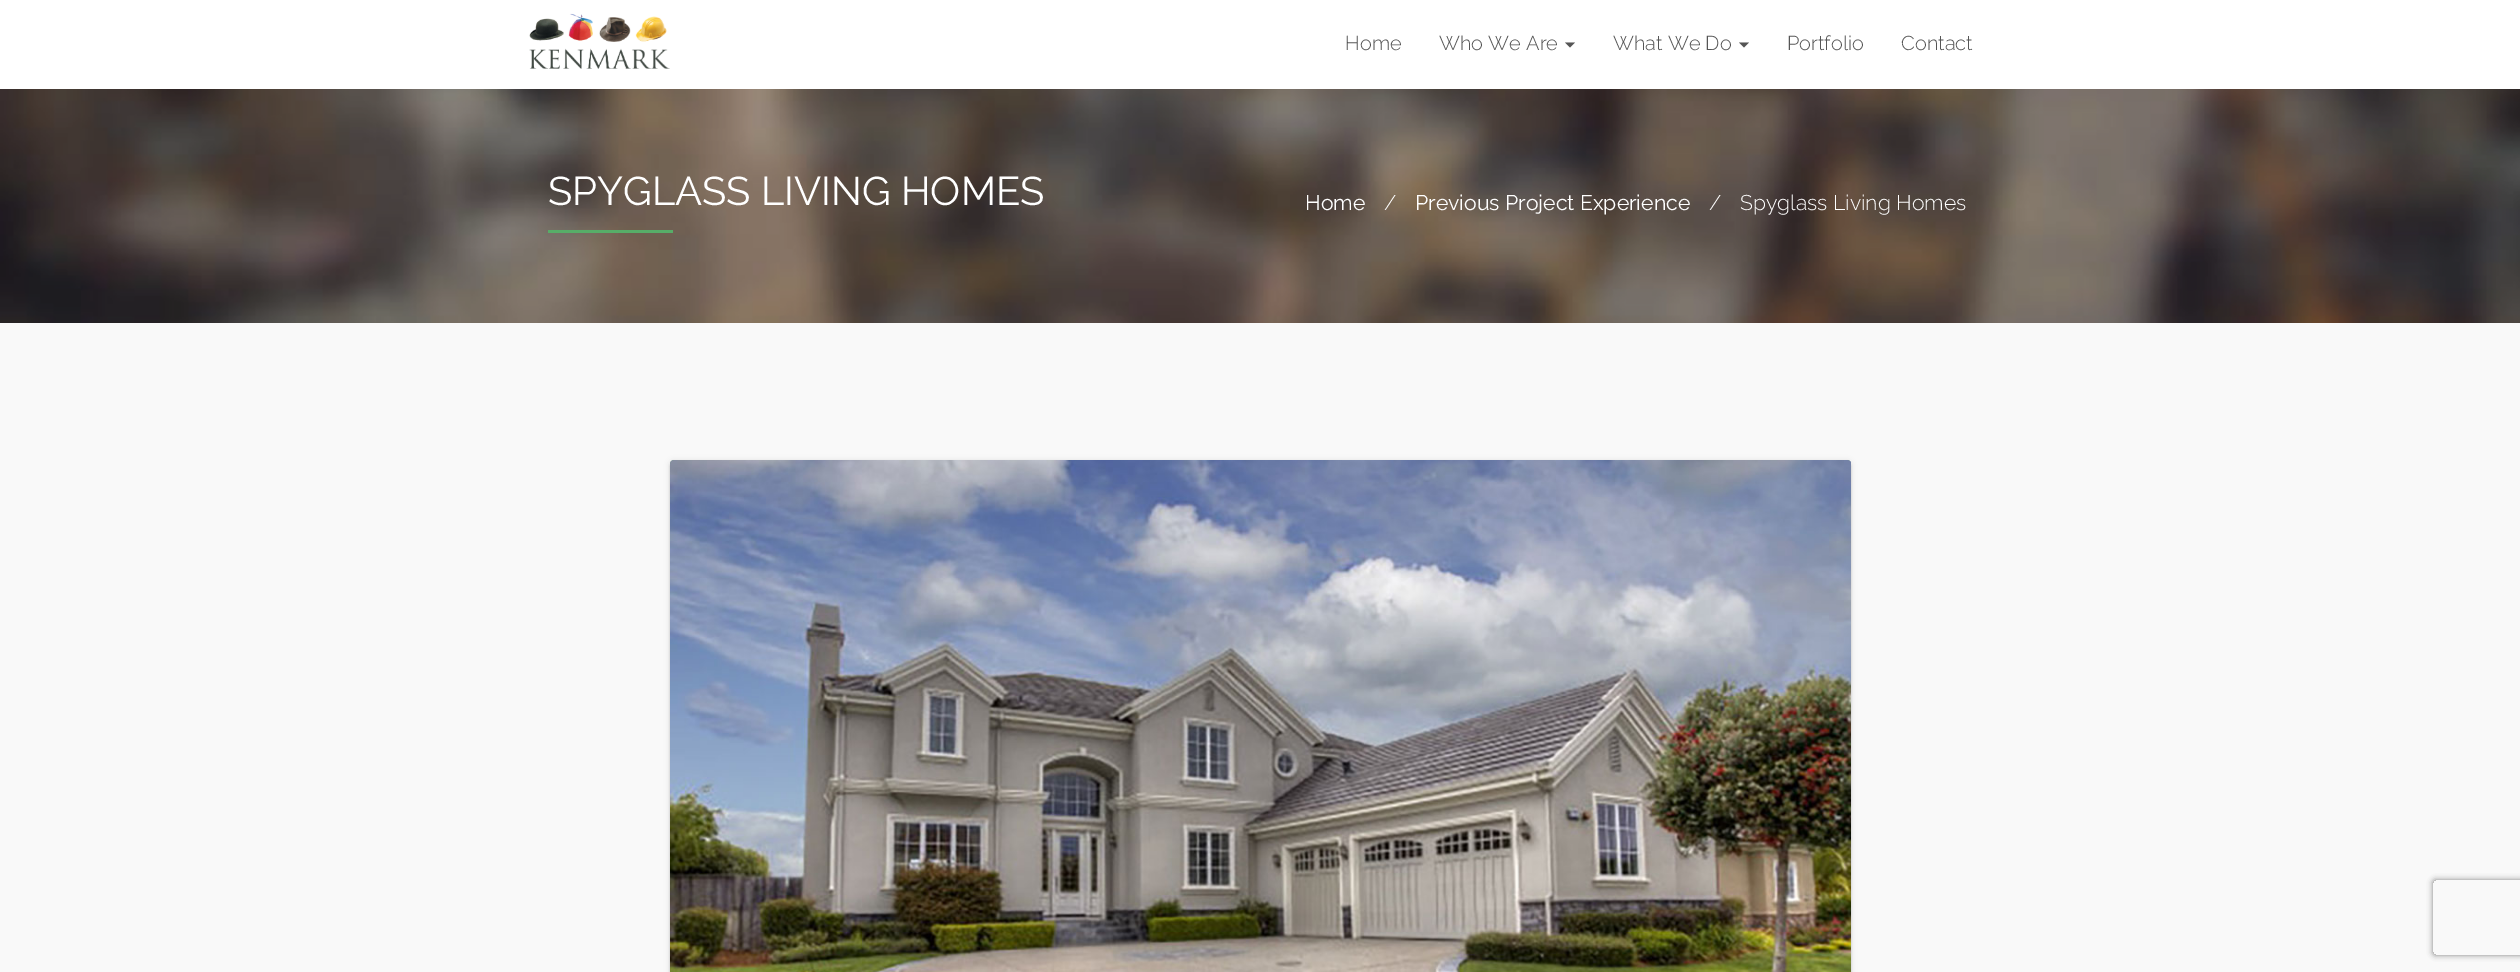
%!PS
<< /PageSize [2520 972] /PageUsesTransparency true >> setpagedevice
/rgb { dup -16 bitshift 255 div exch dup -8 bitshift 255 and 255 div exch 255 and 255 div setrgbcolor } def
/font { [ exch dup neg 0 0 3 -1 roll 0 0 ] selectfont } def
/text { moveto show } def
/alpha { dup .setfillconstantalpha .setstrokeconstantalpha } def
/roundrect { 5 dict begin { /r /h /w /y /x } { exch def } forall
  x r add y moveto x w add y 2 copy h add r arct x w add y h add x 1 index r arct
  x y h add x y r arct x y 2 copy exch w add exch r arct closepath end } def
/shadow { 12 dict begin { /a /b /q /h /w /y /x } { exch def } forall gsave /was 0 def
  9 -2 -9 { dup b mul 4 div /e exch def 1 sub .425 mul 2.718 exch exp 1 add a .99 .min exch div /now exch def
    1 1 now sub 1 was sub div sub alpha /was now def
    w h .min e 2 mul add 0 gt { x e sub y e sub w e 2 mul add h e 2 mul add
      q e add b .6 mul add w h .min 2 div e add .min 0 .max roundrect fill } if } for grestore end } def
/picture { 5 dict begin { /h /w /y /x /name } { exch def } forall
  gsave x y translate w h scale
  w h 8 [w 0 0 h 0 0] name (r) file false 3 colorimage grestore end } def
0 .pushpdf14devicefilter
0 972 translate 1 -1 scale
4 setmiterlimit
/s1 { /Raleway-Light 20 font 16#555555 rgb } def
/s2 { /Raleway-Regular 40 font 16#FFFFFF rgb } def
/s3 { /Raleway-Regular 21.25 font 16#FFFFFF rgb } def
/s4 { /Raleway-Light 21.25 font 16#FFFFFF rgb } def
16#FFFFFF rgb
0 0 2520 972 rectfill
(pic1.raw) 529 13 141 56 picture
s1
(Home) 1345 50 text
(Who We Are) 1439 50 text
1565 42.5 moveto 1575 42.5 lineto 1570 47.5 lineto closepath fill
(What We Do) 1613 50 text
1739 42.5 moveto 1749 42.5 lineto 1744 47.5 lineto closepath fill
(Portfolio) 1787 50 text
(Contact) 1901 50 text
(pic2.raw) 0 89 2520 234 picture
s2
(SPYGLASS LIVING HOMES) 548 205 text
16#57AD68 rgb
548 230 125 3 rectfill
s3
(Home) 1305 210 text
s4
(/) 1384 210 text
s3
(Previous Project Experience) 1415 210 text
s4
(/) 1709 210 text
(Spyglass Living Homes) 1740 210 text
16#F9F9F9 rgb
0 323 2520 649 rectfill
16#000000 rgb
670 461 1181 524 4 3 0.12 shadow
670 463 1181 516 4 1 0.14 shadow
(pic3.raw) 670 460 1181 512 picture
gsave
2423 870 moveto 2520 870 lineto 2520 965 lineto 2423 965 lineto closepath 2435.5 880 moveto 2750.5 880 lineto 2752 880 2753 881 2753 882.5 curveto 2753 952.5 lineto 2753 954 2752 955 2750.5 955 curveto 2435.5 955 lineto 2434 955 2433 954 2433 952.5 curveto 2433 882.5 lineto 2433 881 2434 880 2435.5 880 curveto closepath eoclip newpath
16#808080 rgb
2433 880 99 75 2.5 3 1 shadow
grestore
.poppdf14devicefilter showpage
